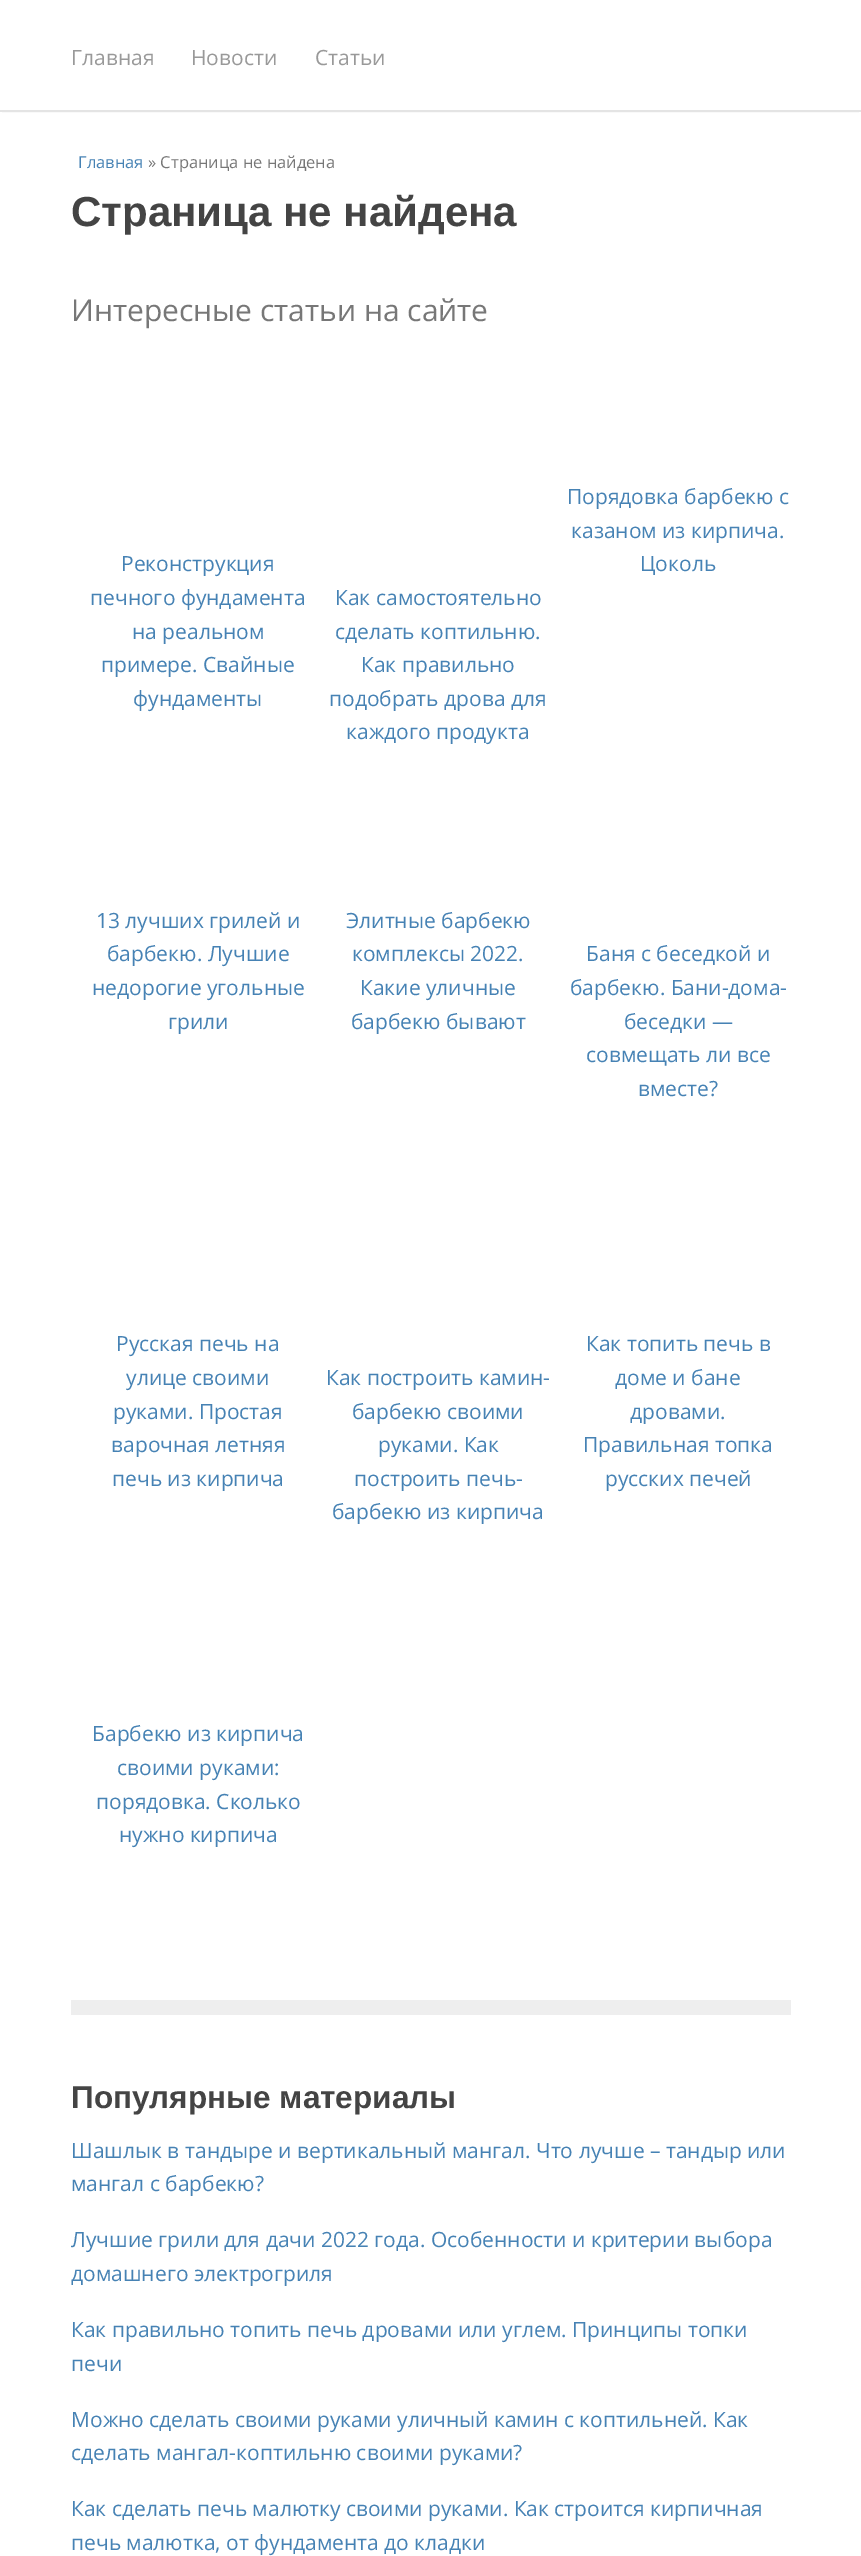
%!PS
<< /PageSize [861 2556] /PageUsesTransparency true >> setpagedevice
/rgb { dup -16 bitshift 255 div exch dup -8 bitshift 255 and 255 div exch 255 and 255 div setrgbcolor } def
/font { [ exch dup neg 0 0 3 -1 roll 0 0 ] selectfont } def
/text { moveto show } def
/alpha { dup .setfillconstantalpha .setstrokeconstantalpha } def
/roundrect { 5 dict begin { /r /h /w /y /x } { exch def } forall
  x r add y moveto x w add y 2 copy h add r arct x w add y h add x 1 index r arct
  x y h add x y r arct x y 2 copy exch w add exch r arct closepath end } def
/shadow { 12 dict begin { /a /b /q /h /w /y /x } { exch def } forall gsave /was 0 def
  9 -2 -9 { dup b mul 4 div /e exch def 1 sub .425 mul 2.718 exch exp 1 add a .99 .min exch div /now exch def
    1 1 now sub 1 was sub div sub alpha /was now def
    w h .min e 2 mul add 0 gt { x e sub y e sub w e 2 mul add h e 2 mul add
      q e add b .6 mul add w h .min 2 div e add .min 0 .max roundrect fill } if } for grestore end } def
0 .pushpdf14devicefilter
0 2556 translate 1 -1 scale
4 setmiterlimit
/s1 { /OpenSans-Regular 21 font 16#999999 rgb } def
/s2 { /OpenSans-Regular 16.5 font 16#4682B4 rgb } def
/s3 { /OpenSans-Regular 16.5 font 16#777777 rgb } def
/s4 { /LiberationSans-Bold 42 font 16#444444 rgb } def
/s5 { /OpenSans-Regular 30 font 16#777777 rgb } def
/s6 { /OpenSans-Regular 21 font 16#4682B4 rgb } def
/s7 { /LiberationSans-Bold 31.5 font 16#444444 rgb } def
16#FFFFFF rgb
0 0 861 2556 rectfill
gsave
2 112 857 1 rectclip
16#000000 rgb
0 -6 861 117 0 2 0.1 shadow
grestore
16#E4E4E4 rgb
0 110 861 2 rectfill
s1
(Главная) 71 65 text
(Новости) 191 65 text
(Статьи) 315 65 text
s2
(Главная) 78 168 text
s3
(» Страница не найдена) 148 168 text
s4
(Страница не найдена) 71 226 text
s5
(Интересные статьи на сайте) 71 321 text
s6
(Порядовка барбекю с) 567 504 text
(казаном из кирпича.) 571 538 text
(Цоколь) 640 571 text
(Реконструкция) 121 571 text
(печного фундамента) 90 605 text
(на реальном) 132 639 text
(примере. Свайные) 101 672 text
(фундаменты) 133 706 text
(Как самостоятельно) 335 605 text
(сделать коптильню.) 335 639 text
(Как правильно) 361 672 text
(подобрать дрова для) 329 706 text
(каждого продукта) 346 739 text
(13 лучших грилей и) 96 928 text
(барбекю. Лучшие) 107 961 text
(недорогие угольные) 92 995 text
(грили) 168 1029 text
(Элитные барбекю) 346 928 text
(комплексы 2022.) 352 961 text
(Какие уличные) 360 995 text
(барбекю бывают) 351 1029 text
(Баня с беседкой и) 586 961 text
(барбекю. Бани-дома-) 570 995 text
(беседки —) 624 1029 text
(совмещать ли все) 586 1062 text
(вместе?) 638 1096 text
(Русская печь на) 116 1351 text
(улице своими) 126 1385 text
(руками. Простая) 113 1419 text
(варочная летняя) 111 1452 text
(печь из кирпича) 112 1486 text
(Как построить камин-) 326 1385 text
(барбекю своими) 352 1419 text
(руками. Как) 378 1452 text
(построить печь-) 354 1486 text
(барбекю из кирпича) 332 1519 text
(Как топить печь в) 586 1351 text
(доме и бане) 615 1385 text
(дровами.) 630 1419 text
(Правильная топка) 583 1452 text
(русских печей) 605 1486 text
(Барбекю из кирпича) 92 1741 text
(своими руками:) 117 1775 text
(порядовка. Сколько) 96 1809 text
(нужно кирпича) 119 1842 text
16#EEEEEE rgb
71 2000 720 15 rectfill
s7
(Популярные материалы) 71 2108 text
s6
(Шашлык в тандыре и вертикальный мангал. Что лучше – тандыр или) 71 2158 text
(мангал с барбекю?) 71 2191 text
(Лучшие грили для дачи 2022 года. Особенности и критерии выбора) 71 2247 text
(домашнего электрогриля) 71 2281 text
(Как правильно топить печь дровами или углем. Принципы топки) 71 2337 text
(печи) 71 2371 text
(Можно сделать своими руками уличный камин с коптильней. Как) 71 2427 text
(сделать мангал-коптильню своими руками?) 71 2460 text
(Как сделать печь малютку своими руками. Как строится кирпичная) 71 2516 text
(печь малютка, от фундамента до кладки) 71 2550 text
.poppdf14devicefilter showpage
